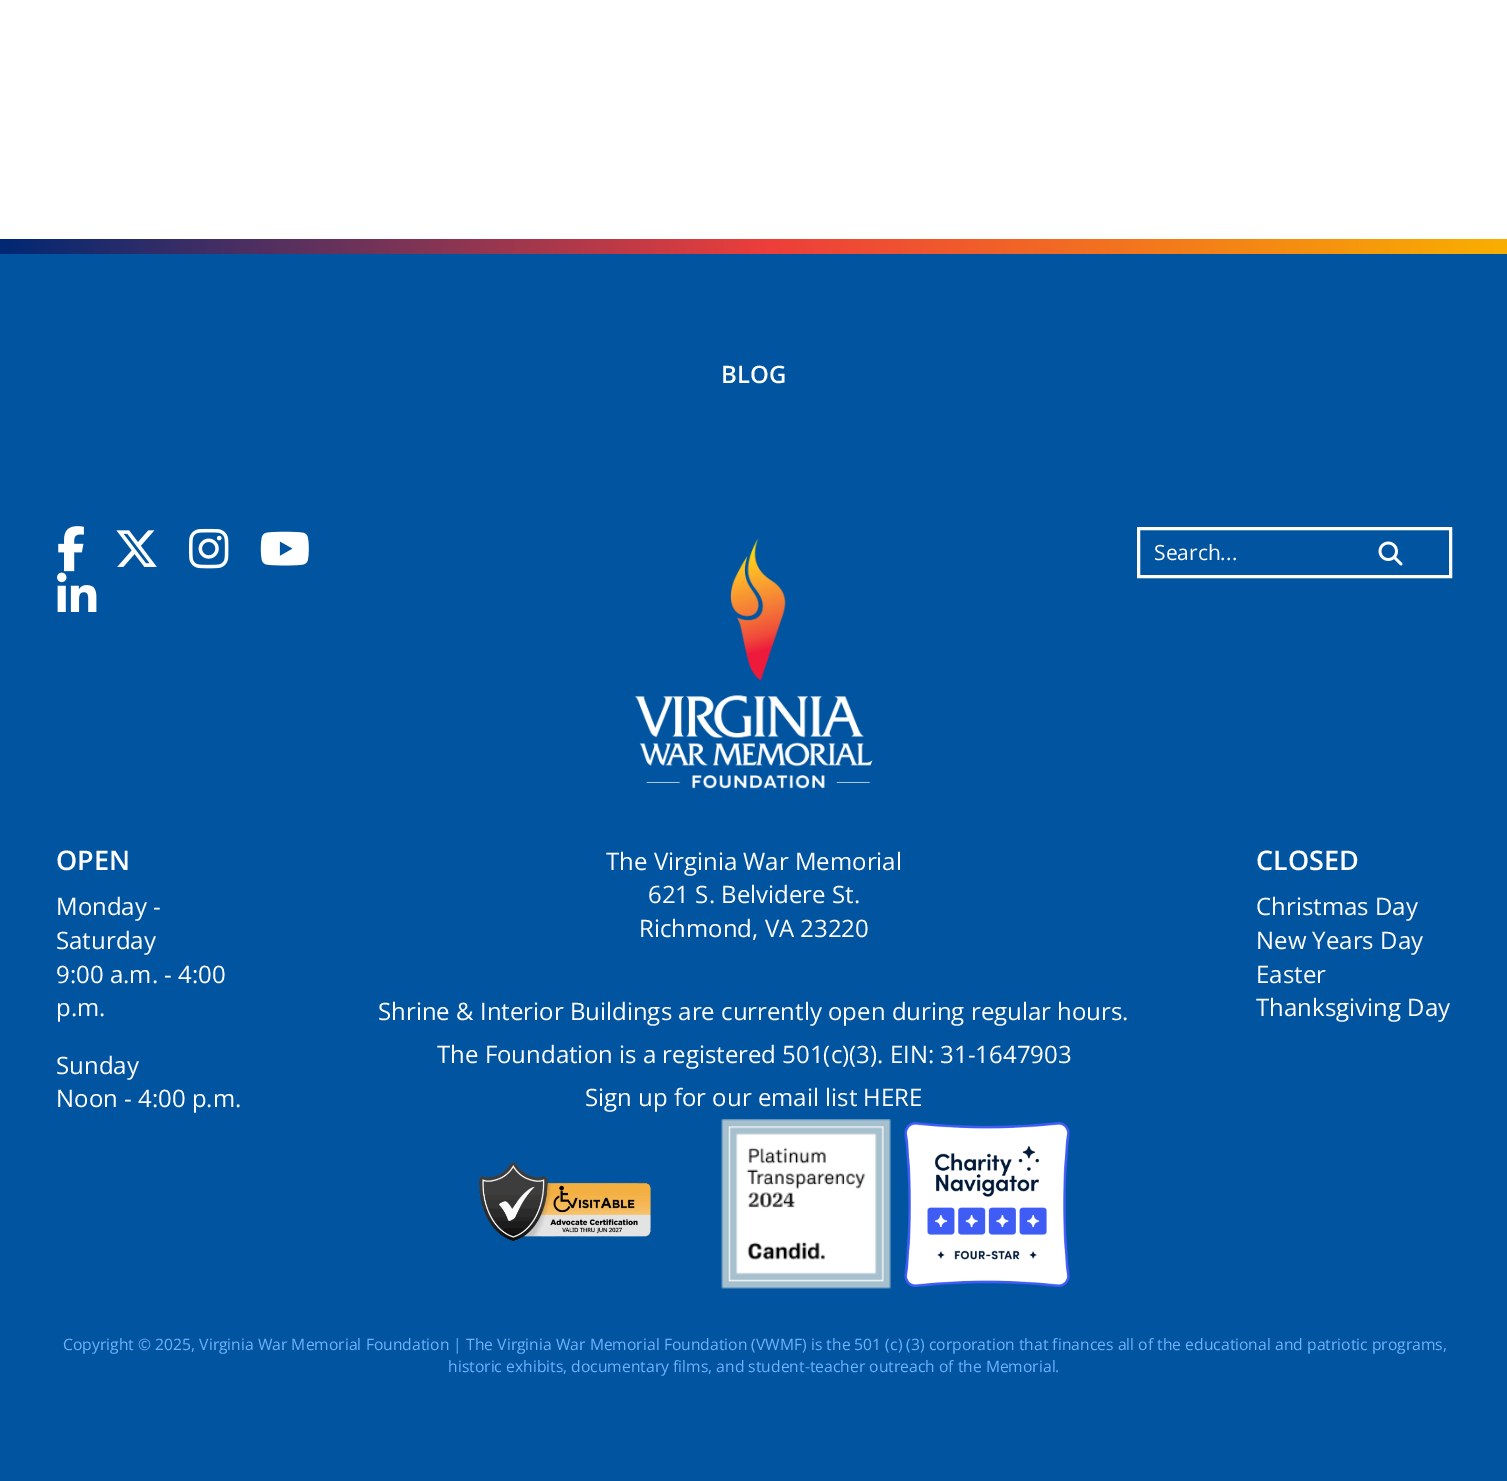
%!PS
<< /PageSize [1507 1481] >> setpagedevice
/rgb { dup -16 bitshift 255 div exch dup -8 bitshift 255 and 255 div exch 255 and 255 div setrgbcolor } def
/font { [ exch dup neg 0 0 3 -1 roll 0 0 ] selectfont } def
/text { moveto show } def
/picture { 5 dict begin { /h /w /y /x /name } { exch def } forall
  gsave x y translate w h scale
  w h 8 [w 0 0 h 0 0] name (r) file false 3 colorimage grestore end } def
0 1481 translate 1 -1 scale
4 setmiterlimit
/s1 { /OpenSans-SemiBold 24 font 16#FFFFFF rgb } def
/s2 { /OpenSans-Regular 21 font 16#FFFFFF rgb } def
/s3 { /OpenSans-SemiBold 27 font 16#FFFFFF rgb } def
/s4 { /OpenSans-Regular 24 font 16#FFFFFF rgb } def
/s5 { /OpenSans-Regular 15.7 font 16#6FB2FE rgb } def
16#FFFFFF rgb
0 0 1507 1481 rectfill
16#0155A0 rgb
0 254 1507 1227 rectfill
gsave 0 239 moveto 1507 239 lineto 1507 254 lineto 0 254 lineto closepath clip newpath
<< /ShadingType 2 /ColorSpace /DeviceRGB /Coords [0 246 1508 246] /Extend [true true] /Function << /FunctionType 3 /Domain [0 1] /Functions [<< /FunctionType 2 /Domain [0 1] /C0 [0 0.157 0.455] /C1 [0.929 0.243 0.231] /N 1 >> << /FunctionType 2 /Domain [0 1] /C0 [0.929 0.243 0.231] /C1 [0.976 0.686 0] /N 1 >>] /Bounds [0.51] /Encode [0 1 0 1] >> >> shfill grestore
s1
(BLOG) 721 383 text
(pic1.raw) 58 526 26 46 picture
(pic2.raw) 116 530 41 37 picture
(pic3.raw) 189 528 40 41 picture
(pic4.raw) 260 531 49 35 picture
(pic5.raw) 57 572 40 40 picture
(pic6.raw) 634 538 239 251 picture
3 setlinewidth
1138.5 528.5 312 48 rectstroke
s2
(Search...) 1154 560 text
(pic7.raw) 1378 541 25 25 picture
s3
(OPEN) 56 870 text
s4
(Monday -) 56 915 text
(Saturday) 56 949 text
(9:00 a.m. - 4:00) 56 983 text
(p.m.) 56 1016 text
(Sunday) 56 1074 text
(Noon - 4:00 p.m.) 56 1107 text
(The Virginia War Memorial) 606 870 text
(621 S. Belvidere St.) 648 903 text
(Richmond, VA 23220) 639 937 text
(Shrine & Interior Buildings are currently open during regular hours.) 378 1020 text
(The Foundation is a registered 501\(c\)\(3\). EIN: 31-1647903) 437 1063 text
(Sign up for our email list HERE) 585 1106 text
(pic8.raw) 479 1162 172 79 picture
(pic9.raw) 721 1119 170 170 picture
(pic10.raw) 904 1122 166 165 picture
s3
(CLOSED) 1256 870 text
s4
(Christmas Day) 1256 915 text
(New Years Day) 1256 949 text
(Easter) 1256 983 text
(Thanksgiving Day) 1256 1016 text
s5
(Copyright © 2025, Virginia War Memorial Foundation | The Virginia War Memorial Foundation \(VWMF\) is the 501 \(c\) \(3\) corporation that finances all of the educational and patriotic programs,) 63 1350 text
448 1372 moveto -0.1 0 32 (historic exhibits, documentary films, and student-teacher outreach of the Memorial.) widthshow
showpage
